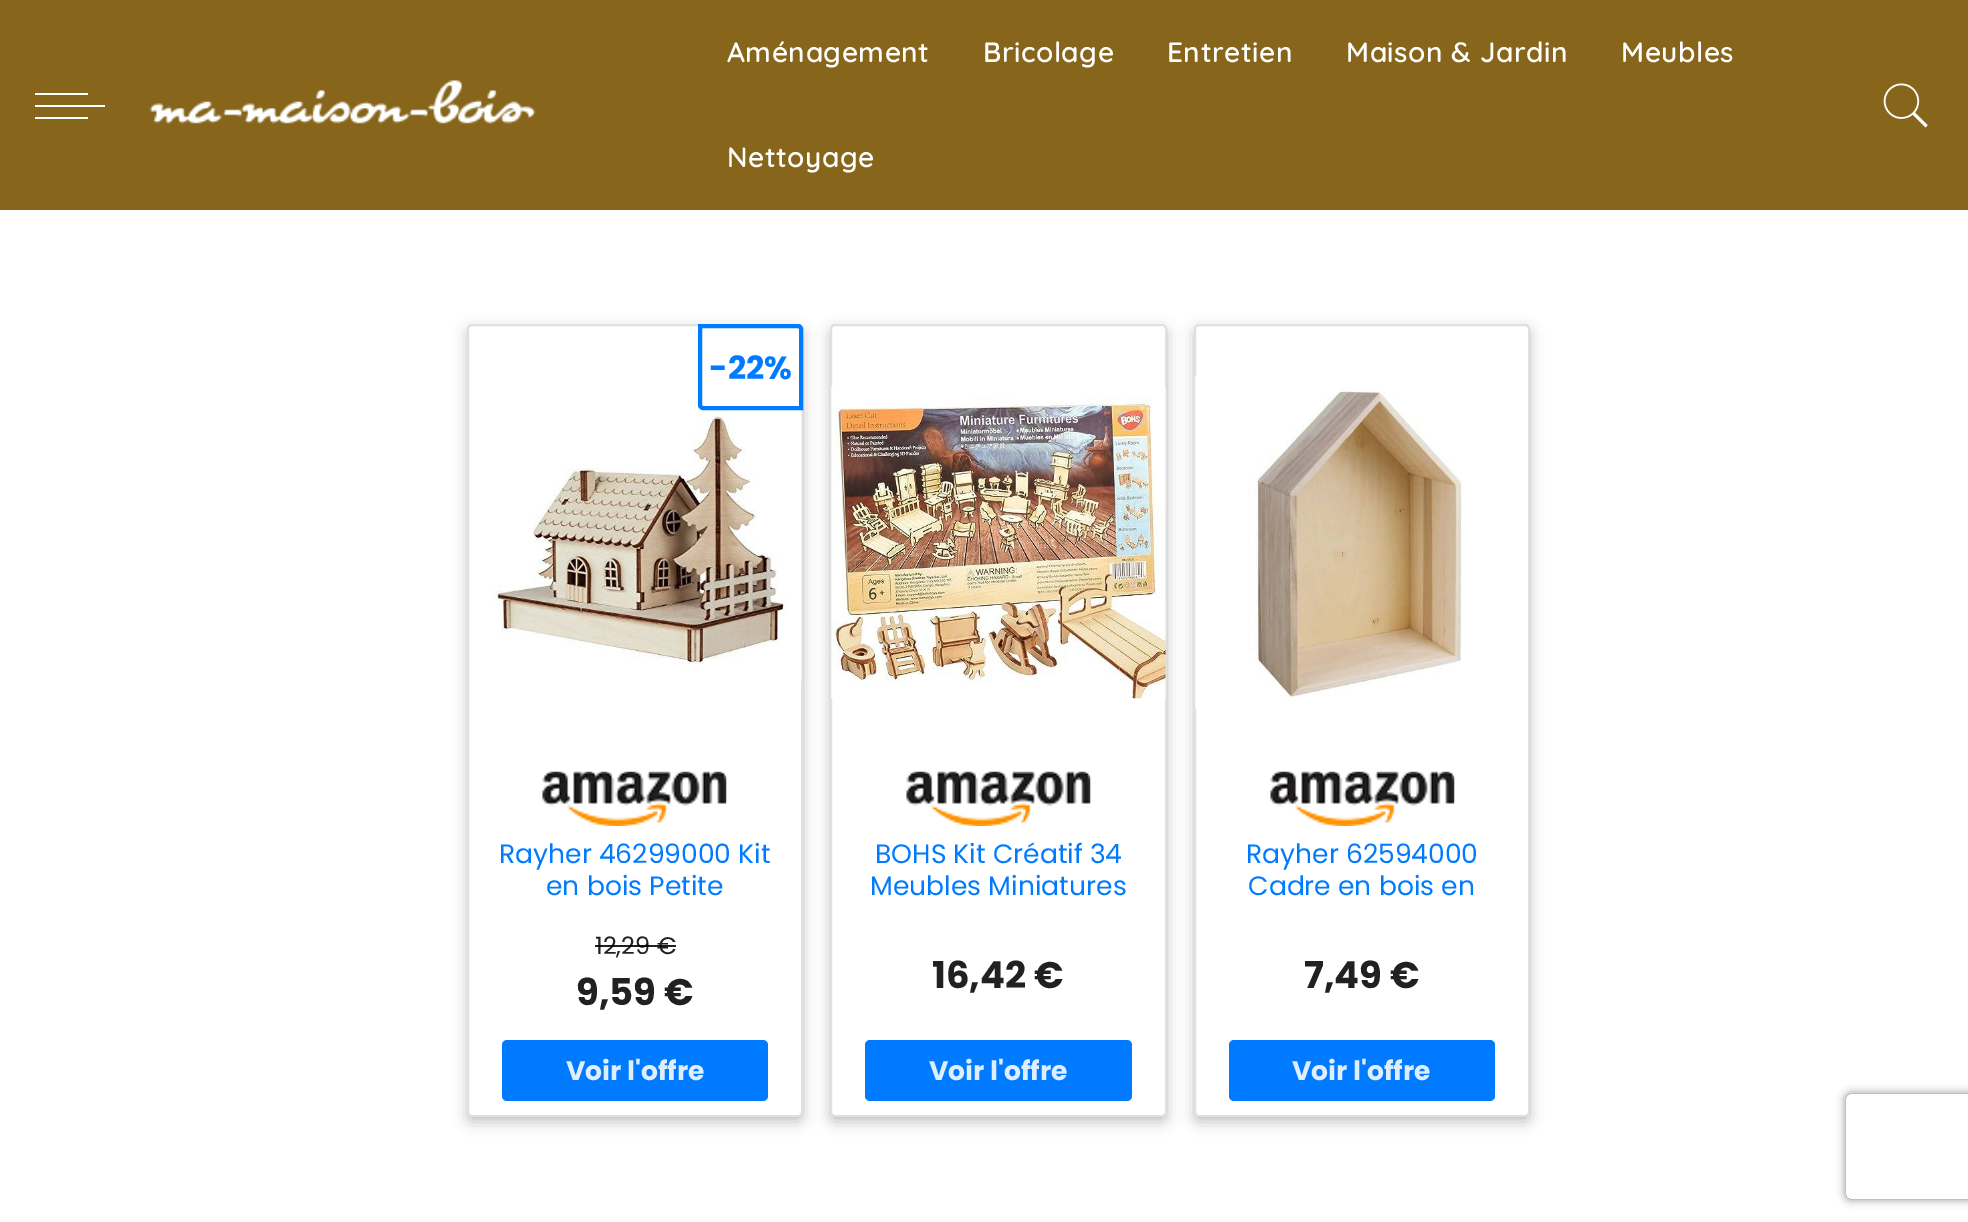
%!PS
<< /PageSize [1968 1222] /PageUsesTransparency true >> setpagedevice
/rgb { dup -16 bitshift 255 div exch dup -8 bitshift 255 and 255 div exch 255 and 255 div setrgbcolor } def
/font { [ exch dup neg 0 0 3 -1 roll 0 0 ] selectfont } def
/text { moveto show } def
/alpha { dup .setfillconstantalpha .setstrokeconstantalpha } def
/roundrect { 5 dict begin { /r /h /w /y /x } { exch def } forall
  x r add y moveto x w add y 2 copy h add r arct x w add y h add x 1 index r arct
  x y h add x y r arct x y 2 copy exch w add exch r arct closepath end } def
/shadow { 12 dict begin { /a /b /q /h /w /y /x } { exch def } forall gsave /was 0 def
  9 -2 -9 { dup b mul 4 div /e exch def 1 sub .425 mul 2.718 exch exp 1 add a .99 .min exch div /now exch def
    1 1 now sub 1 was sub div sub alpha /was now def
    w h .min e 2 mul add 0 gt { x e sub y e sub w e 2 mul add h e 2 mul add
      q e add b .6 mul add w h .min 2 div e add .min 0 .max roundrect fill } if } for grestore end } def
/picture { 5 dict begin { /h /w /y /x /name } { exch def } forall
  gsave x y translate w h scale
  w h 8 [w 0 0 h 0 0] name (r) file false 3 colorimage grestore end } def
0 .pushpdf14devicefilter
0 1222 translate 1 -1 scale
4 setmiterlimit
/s1 { /Poppins-Bold 32 font 16#007BFF rgb } def
/s2 { /Poppins-Regular 24 font 16#212121 rgb } def
/s3 { /Poppins-Bold 37 font 16#212121 rgb } def
/s4 { /Poppins-Bold 26.6 font 16#DEEEFF rgb } def
/s5 { /Poppins-Regular 26.6 font 16#007BFF rgb } def
16#FFFFFF rgb
0 0 1968 1222 rectfill
16#87661B rgb
0 0 1968 210 rectfill
16#FFFFFF rgb
35 105 70 2 rectfill
35 93 53 2 rectfill
35 117 53 2 rectfill
(pic1.raw) 149 80 387 44 picture
/Quicksand-SemiBold 28 font
727 62 moveto 0.5 0 (Aménagement) ashow
983 62 moveto 0.5 0 (Bricolage) ashow
1167 62 moveto 0.5 0 (Entretien) ashow
1346 62 moveto 0.5 0 (Maison & Jardin) ashow
1621 62 moveto 0.5 0 (Meubles) ashow
727 167 moveto 0.5 0 (Nettoyage) ashow
(pic2.raw) 1883 83 45 45 picture
16#000000 rgb
467 329 336 793 5 7 0.24 shadow
16#FFFFFF rgb
467 324 336 793 5 roundrect fill
0.12 alpha
16#000000 rgb
2 setlinewidth
468 325 334 791 4 roundrect stroke
1 alpha
(pic3.raw) 490 404 312 277 picture
16#FFFFFF rgb
700 326 moveto 798 326 lineto 799.5 326 801 327.5 801 329 curveto 801 408 lineto 703 408 lineto 701.5 408 700 406.5 700 405 curveto closepath gsave fill grestore
16#007BFF rgb
4 setlinewidth
stroke
s1
(-22%) 709 379 text
s2
(12,29 €) 595 954 text
0.87 alpha
16#000000 rgb
595 945 81 2 rectfill
1 alpha
s3
(9,59 €) 576 1005 text
16#007BFF rgb
502 1040 266 61 5 roundrect fill
s4
(Voir l'offre) 566 1080 text
(pic4.raw) 542 771 185 55 picture
s5
(Rayher 46299000 Kit) 499 863 text
(en bois Petite) 546 895 text
16#000000 rgb
830 329 337 793 5 7 0.24 shadow
16#FFFFFF rgb
830 324 337 793 5 roundrect fill
0.12 alpha
16#000000 rgb
2 setlinewidth
831 325 335 791 4 roundrect stroke
1 alpha
(pic5.raw) 831 386 335 313 picture
(pic4.raw) 906 771 185 55 picture
s5
(BOHS Kit Créatif 34) 875 863 text
(Meubles Miniatures) 870 895 text
s3
(16,42 €) 932 988 text
16#007BFF rgb
865 1040 267 61 5 roundrect fill
s4
(Voir l'offre) 929 1080 text
16#000000 rgb
1194 329 336 793 5 7 0.24 shadow
16#FFFFFF rgb
1194 324 336 793 5 roundrect fill
0.12 alpha
16#000000 rgb
1195 325 334 791 4 roundrect stroke
1 alpha
(pic6.raw) 1195 376 267 333 picture
(pic4.raw) 1270 771 185 55 picture
s5
(Rayher 62594000) 1246 863 text
(Cadre en bois en) 1248 895 text
s3
(7,49 €) 1304 988 text
16#007BFF rgb
1229 1040 266 61 5 roundrect fill
s4
(Voir l'offre) 1292 1080 text
gsave
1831 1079 moveto 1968 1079 lineto 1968 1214 lineto 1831 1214 lineto closepath 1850 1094 moveto 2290 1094 lineto 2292 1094 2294 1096 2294 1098 curveto 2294 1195 lineto 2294 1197 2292 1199 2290 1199 curveto 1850 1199 lineto 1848 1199 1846 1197 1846 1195 curveto 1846 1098 lineto 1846 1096 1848 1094 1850 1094 curveto closepath eoclip newpath
16#808080 rgb
1846 1094 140 105 4 4.5 1 shadow
grestore
.poppdf14devicefilter showpage
